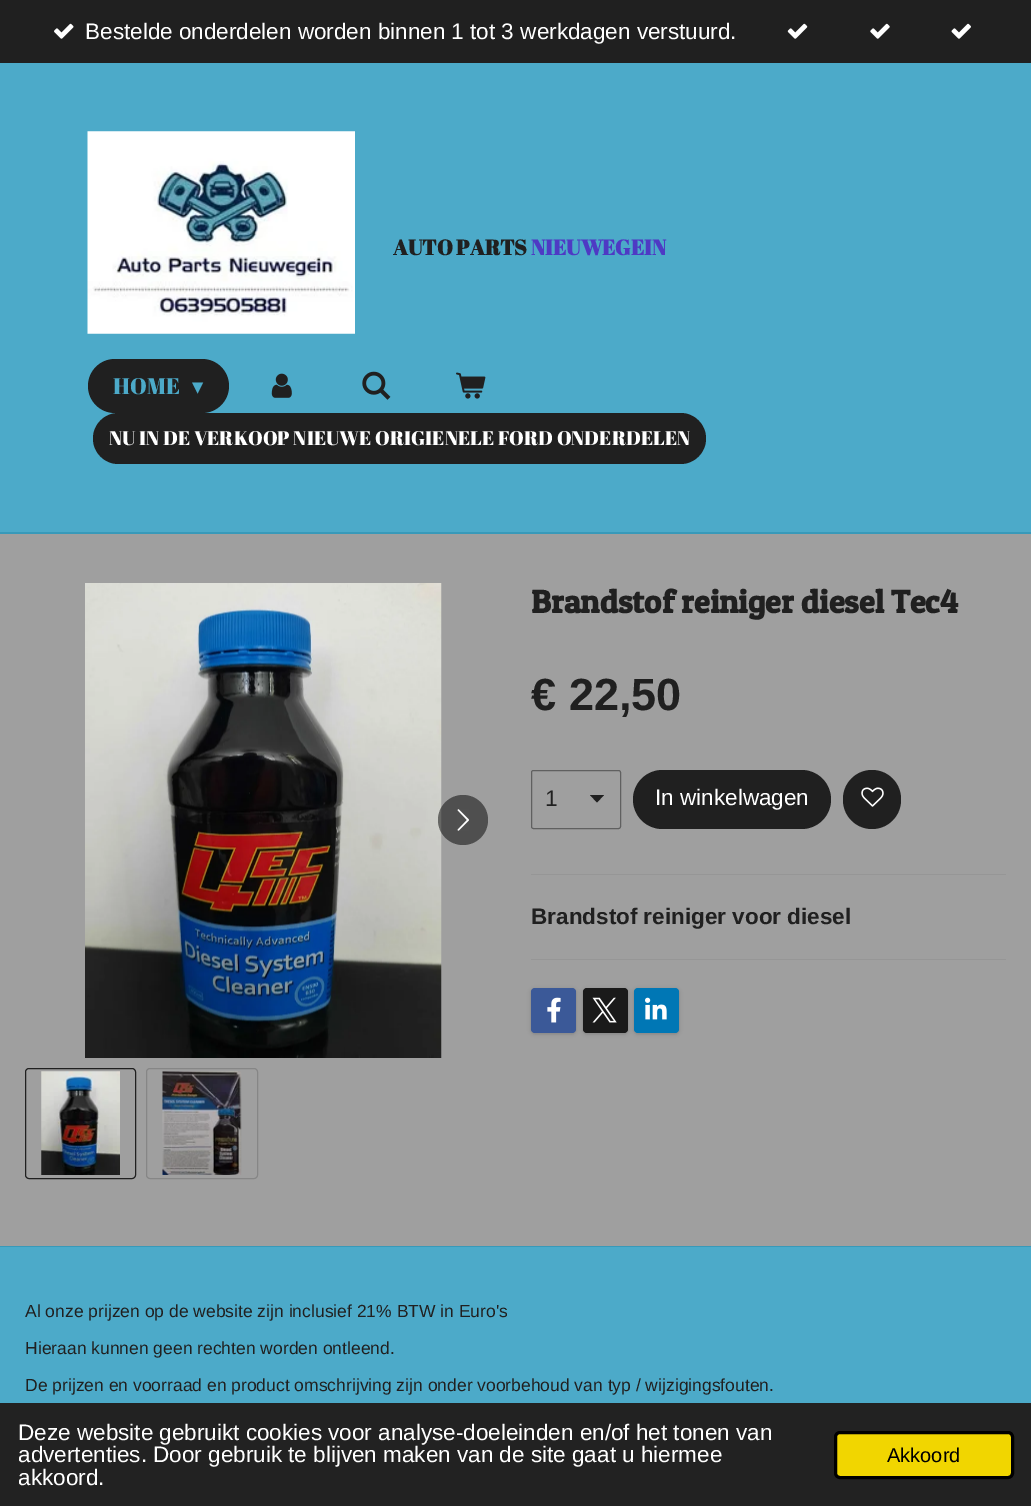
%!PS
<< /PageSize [1031 1506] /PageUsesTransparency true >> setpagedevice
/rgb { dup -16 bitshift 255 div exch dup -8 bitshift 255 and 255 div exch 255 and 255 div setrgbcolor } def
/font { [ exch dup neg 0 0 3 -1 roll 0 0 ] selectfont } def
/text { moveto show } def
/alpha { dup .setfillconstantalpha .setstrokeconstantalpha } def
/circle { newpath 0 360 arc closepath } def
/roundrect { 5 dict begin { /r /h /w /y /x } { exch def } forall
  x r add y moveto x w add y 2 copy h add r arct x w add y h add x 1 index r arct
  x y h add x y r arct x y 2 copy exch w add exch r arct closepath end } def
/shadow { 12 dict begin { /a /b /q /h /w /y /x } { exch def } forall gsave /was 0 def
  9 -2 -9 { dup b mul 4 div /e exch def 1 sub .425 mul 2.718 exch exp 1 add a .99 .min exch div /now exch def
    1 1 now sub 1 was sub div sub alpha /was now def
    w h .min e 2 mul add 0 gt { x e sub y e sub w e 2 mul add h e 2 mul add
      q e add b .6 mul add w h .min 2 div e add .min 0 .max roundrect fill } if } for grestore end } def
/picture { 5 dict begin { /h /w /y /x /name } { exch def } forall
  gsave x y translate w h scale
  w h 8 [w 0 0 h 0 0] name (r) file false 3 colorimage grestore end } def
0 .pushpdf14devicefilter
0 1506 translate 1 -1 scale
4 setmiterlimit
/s1 { /LiberationSans-Regular 22.5 font 16#FFFFFF rgb } def
/s2 { /AbrilFatface-Bold 21.25 font 16#202020 rgb } def
/s3 { /AbrilFatface-Bold 21.25 font 16#4E3AC4 rgb } def
/s4 { /AbrilFatface-Regular 22.5 font 16#4CAAC9 rgb } def
/s5 { /DejaVuSans-Regular 22.5 font 16#4CAAC9 rgb } def
/s6 { /AbrilFatface-Regular 19.7 font 16#FFFFFF rgb } def
/s7 { /PatuaOne-Bold 32.5 font 16#202020 rgb } def
/s8 { /LiberationSans-Bold 45 font 16#202020 rgb } def
/s9 { /LiberationSans-Regular 22.5 font 16#202020 rgb } def
/s10 { /LiberationSans-Bold 22.5 font 16#202020 rgb } def
/s11 { /LiberationSans-Regular 17.5 font 16#202020 rgb } def
/s12 { /LiberationSans-Regular 20 font 16#000000 rgb } def
16#9F9F9F rgb
0 0 1031 1506 rectfill
16#4CAAC9 rgb
0 63 1031 469 rectfill
16#202020 rgb
0 0 1031 63 rectfill
(pic1.raw) 54 23 20 16 picture
s1
(Bestelde onderdelen worden binnen 1 tot 3 werkdagen verstuurd.) 85 39 text
(pic2.raw) 787 23 21 16 picture
(pic3.raw) 870 23 20 16 picture
(pic4.raw) 951 23 20 16 picture
16#3899B9 rgb
0 532 1031 2 rectfill
(pic5.raw) 87 131 268 203 picture
s2
(AUTO PARTS) 393 255 text
s3
(NIEUWEGEIN) 531 255 text
16#202020 rgb
88 359 141 54 27 roundrect fill
s4
(HOME) 113 394 text
s5
(▾) 192 394 text
(pic6.raw) 271 373 21 25 picture
(pic7.raw) 362 371 29 29 picture
(pic8.raw) 456 372 30 27 picture
16#202020 rgb
93 413 613 51 25.5 roundrect fill
s6
(NU IN DE VERKOOP NIEUWE ORIGIENELE FORD ONDERDELEN) 109 445 text
(pic9.raw) 85 583 357 475 picture
0.5 alpha
16#000000 rgb
463 820 25 circle fill
1 alpha
(pic10.raw) 457 809 12 22 picture
16#202020 rgb
25.5 1068.5 110 110 3.5 roundrect stroke
(pic11.raw) 41 1071 79 104 picture
16#868686 rgb
146.5 1068.5 111 110 3.5 roundrect stroke
(pic12.raw) 162 1071 80 104 picture
s7
(Brandstof reiniger diesel Tec4) 531 613 text
s8
(€ 22,50) 531 710 text
597 802.5 moveto 590 795 lineto 604 795 lineto closepath fill
16#606060 rgb
531.5 770.5 89 58 2 roundrect stroke
s9
(1) 545 806 text
633 770 198 59 29.5 roundrect fill
s1
(In winkelwagen) 655 805 text
16#202020 rgb
843 770 58 59 29 roundrect fill
(pic13.raw) 861 787 23 20 picture
16#969696 rgb
531 874 475 1 rectfill
s10
(Brandstof reiniger voor diesel) 531 924 text
16#969696 rgb
531 959 475 1 rectfill
16#000000 rgb
531 989 45 45 4 2 0.2 shadow
16#3B5998 rgb
531 988 45 45 4 roundrect fill
(pic14.raw) 547 997 14 26 picture
16#000000 rgb
583 989 45 45 4 2 0.2 shadow
16#1A1A1A rgb
583 988 45 45 4 roundrect fill
(pic15.raw) 592 997 25 26 picture
16#000000 rgb
634 989 45 45 4 2 0.2 shadow
16#0077B5 rgb
634 988 45 45 4 roundrect fill
(pic16.raw) 645 997 22 23 picture
16#4CAAC9 rgb
0 1247 1031 156 rectfill
16#3899B9 rgb
0 1246 1031 1 rectfill
s11
(Al onze prijzen op de website zijn inclusief 21% BTW in Euro's) 25 1317 text
(Hieraan kunnen geen rechten worden ontleend.) 25 1354 text
(De prijzen en voorraad en product omschrijving zijn onder voorbehoud van typ / wijzigingsfouten.) 25 1391 text
16#222222 rgb
0 1403 1031 103 rectfill
s1
(Deze website gebruikt cookies voor analyse-doeleinden en/of het tonen van) 18 1440 text
(advertenties. Door gebruik te blijven maken van de site gaat u hiermee) 18 1462 text
(akkoord.) 18 1485 text
16#F1D600 rgb
835.5 1432.5 177 45 4.5 roundrect gsave fill grestore
16#000000 rgb
3 setlinewidth
stroke
s12
(Akkoord) 887 1462 text
.poppdf14devicefilter showpage
